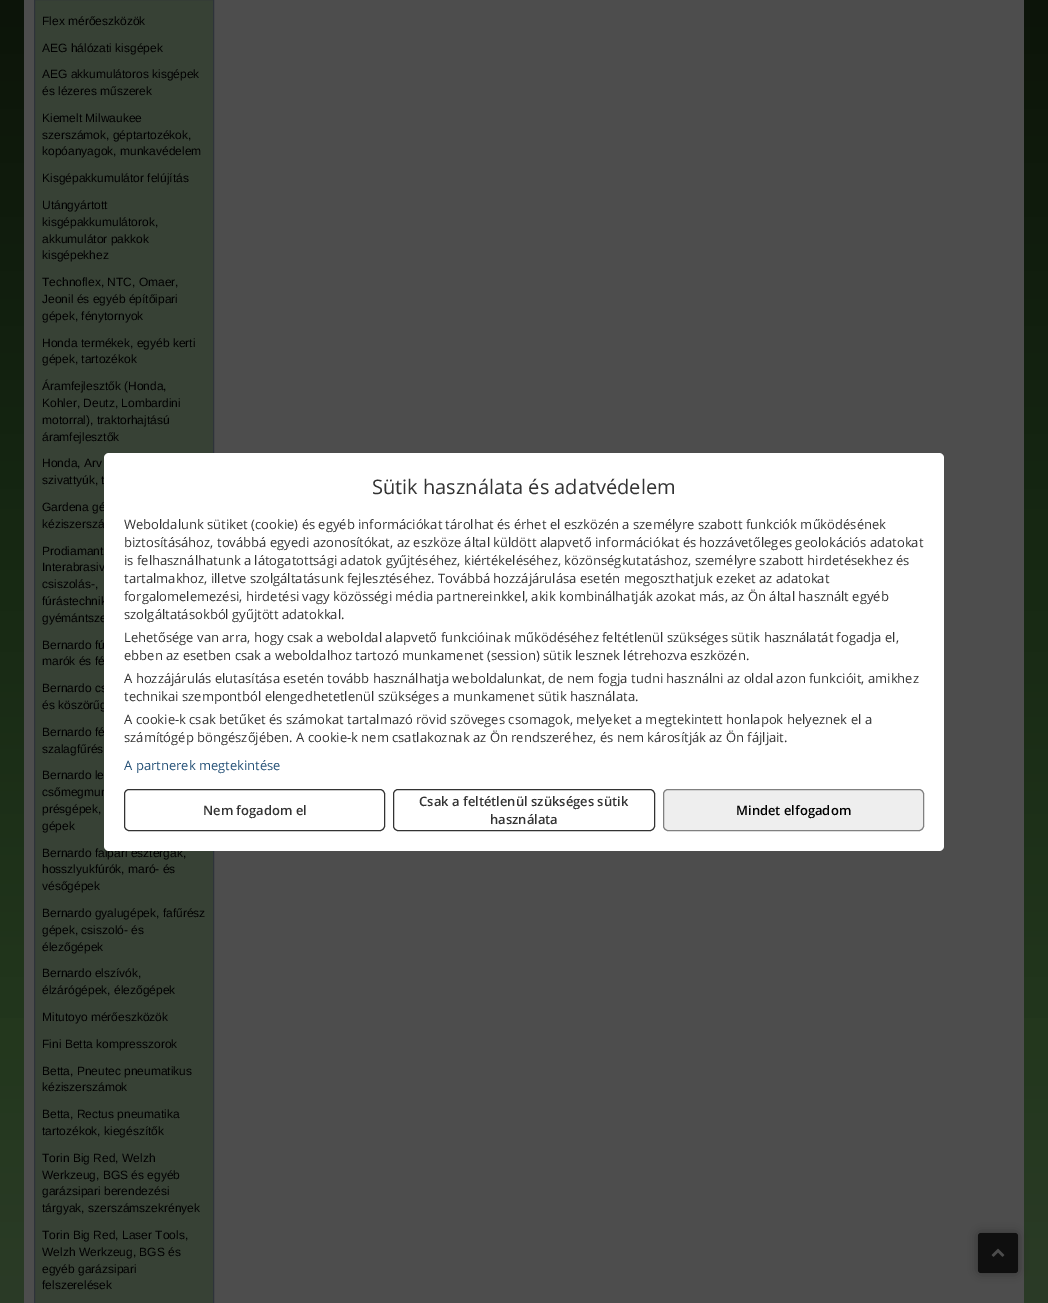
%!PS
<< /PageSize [1048 1303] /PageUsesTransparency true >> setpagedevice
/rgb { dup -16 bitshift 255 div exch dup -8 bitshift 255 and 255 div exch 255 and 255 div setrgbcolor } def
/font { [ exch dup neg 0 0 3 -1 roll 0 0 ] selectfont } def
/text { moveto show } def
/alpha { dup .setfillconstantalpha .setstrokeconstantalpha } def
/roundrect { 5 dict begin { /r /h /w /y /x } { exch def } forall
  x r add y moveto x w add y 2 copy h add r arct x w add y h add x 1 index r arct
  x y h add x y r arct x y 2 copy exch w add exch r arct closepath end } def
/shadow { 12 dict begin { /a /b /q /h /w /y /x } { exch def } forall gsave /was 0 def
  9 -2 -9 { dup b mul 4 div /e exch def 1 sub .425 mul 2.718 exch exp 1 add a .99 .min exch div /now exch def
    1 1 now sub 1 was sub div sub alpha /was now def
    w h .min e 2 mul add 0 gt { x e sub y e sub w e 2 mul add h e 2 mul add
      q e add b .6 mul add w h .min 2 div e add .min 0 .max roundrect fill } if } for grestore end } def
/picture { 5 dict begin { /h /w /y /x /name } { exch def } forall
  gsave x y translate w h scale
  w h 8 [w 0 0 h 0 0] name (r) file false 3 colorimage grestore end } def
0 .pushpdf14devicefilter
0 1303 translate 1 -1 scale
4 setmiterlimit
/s1 { /LiberationSans-Regular 12 font 16#000000 rgb } def
/s2 { /OpenSans-Regular 20 font 16#333333 rgb } def
/s3 { /OpenSans-Regular 13 font 16#333333 rgb } def
/s4 { /OpenSans-Regular 13 font 16#245076 rgb } def
/s5 { /OpenSans-SemiBold 13 font 16#333333 rgb } def
/s6 { /OpenSans-SemiBold 13 font 16#000000 rgb } def
16#FFFFFF rgb
0 0 1048 1303 rectfill
gsave 0 0 moveto 1048 0 lineto 1048 1303 lineto 0 1303 lineto closepath clip newpath
<< /ShadingType 2 /ColorSpace /DeviceRGB /Coords [524 0 524 1303] /Extend [true true] /Function << /FunctionType 3 /Domain [0 1] /Functions [<< /FunctionType 2 /Domain [0 1] /C0 [0.047 0.078 0.035] /C1 [0.086 0.153 0.071] /N 1 >> << /FunctionType 2 /Domain [0 1] /C0 [0.086 0.153 0.071] /C1 [0.137 0.216 0.114] /N 1 >> << /FunctionType 2 /Domain [0 1] /C0 [0.137 0.216 0.114] /C1 [0.169 0.231 0.153] /N 1 >>] /Bounds [0.4 0.8] /Encode [0 1 0 1 0 1] >> >> shfill grestore
16#4D4D4D rgb
24 0 1000 1303 rectfill
16#374135 rgb
34.5 -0.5 moveto 213.5 -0.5 lineto 213.5 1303.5 lineto 34.5 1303.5 lineto closepath gsave fill grestore
16#2E333A rgb
stroke
s1
(Flex mérőeszközök) 42 25 text
(AEG hálózati kisgépek) 42 52 text
(AEG akkumulátoros kisgépek) 42 78 text
(és lézeres műszerek) 42 95 text
(Kiemelt Milwaukee) 42 122 text
(szerszámok, géptartozékok,) 42 139 text
(kopóanyagok, munkavédelem) 42 155 text
(Kisgépakkumulátor felújítás) 42 182 text
(Utángyártott) 42 209 text
(kisgépakkumulátorok,) 42 226 text
(akkumulátor pakkok) 42 243 text
(kisgépekhez) 42 259 text
(Technoflex, NTC, Omaer,) 42 286 text
(Jeonil és egyéb építőipari) 42 303 text
(gépek, fénytornyok) 42 320 text
(Honda termékek, egyéb kerti) 42 347 text
(gépek, tartozékok) 42 363 text
(Áramfejlesztők \(Honda,) 42 390 text
(Kohler, Deutz, Lombardini) 42 407 text
(motorral\), traktorhajtású) 42 424 text
(áramfejlesztők) 42 441 text
(Honda, Arv) 42 467 text
(szivattyúk, t) 42 484 text
(Gardena gé) 42 511 text
(kéziszerszá) 42 528 text
(Prodiamant) 42 555 text
(Interabrasiv) 42 571 text
(csiszolás-,) 42 588 text
(fúrástechnik) 42 605 text
(gyémántsze) 42 622 text
(Bernardo fú) 42 649 text
(marók és fé) 42 665 text
(Bernardo cs) 42 692 text
(és köszörűg) 42 709 text
(Bernardo fé) 42 736 text
(szalagfűrés) 42 753 text
(Bernardo le) 42 779 text
(csőmegmun) 42 796 text
(présgépek,) 42 813 text
(gépek) 42 830 text
(Bernardo faipari esztergák,) 42 857 text
(hosszlyukfúrók, maró- és) 42 873 text
(vésőgépek) 42 890 text
(Bernardo gyalugépek, fafűrész) 42 917 text
(gépek, csiszoló- és) 42 934 text
(élezőgépek) 42 951 text
(Bernardo elszívók,) 42 977 text
(élzárógépek, élezőgépek) 42 994 text
(Mitutoyo mérőeszközök) 42 1021 text
(Fini Betta kompresszorok) 42 1048 text
(Betta, Pneutec pneumatikus) 42 1075 text
(kéziszerszámok) 42 1091 text
(Betta, Rectus pneumatika) 42 1118 text
(tartozékok, kiegészítők) 42 1135 text
(Torin Big Red, Welzh) 42 1162 text
(Werkzeug, BGS és egyéb) 42 1179 text
(garázsipari berendezési) 42 1195 text
(tárgyak, szerszámszekrények) 42 1212 text
(Torin Big Red, Laser Tools,) 42 1239 text
(Welzh Werkzeug, BGS és) 42 1256 text
(egyéb garázsipari) 42 1273 text
(felszerelések) 42 1289 text
16#FFFFFF rgb
104 453 840 398 5 roundrect fill
s2
(Sütik használata és adatvédelem) 372 494 text
s3
(Weboldalunk sütiket \(cookie\) és egyéb információkat tárolhat és érhet el eszközén a személyre szabott funkciók működésének) 124 529 text
(biztosításához, továbbá egyedi azonosítókat, az eszköze által küldött alapvető információkat és hozzávetőleges geolokációs adatokat) 124 547 text
(is felhasználhatunk a látogatottsági adatok gyűjtéséhez, kiértékeléséhez, közönségkutatáshoz, személyre szabott hirdetésekhez és) 124 565 text
(tartalmakhoz, illetve szolgáltatásunk fejlesztéséhez. Továbbá hozzájárulása esetén megoszthatjuk ezeket az adatokat) 124 583 text
(forgalomelemezési, hirdetési vagy közösségi média partnereinkkel, akik kombinálhatják azokat más, az Ön által használt egyéb) 124 601 text
(szolgáltatásokból gyűjtött adatokkal.) 124 619 text
(Lehetősége van arra, hogy csak a weboldal alapvető funkcióinak működéséhez feltétlenül szükséges sütik használatát fogadja el,) 124 642 text
(ebben az esetben csak a weboldalhoz tartozó munkamenet \(session\) sütik lesznek létrehozva eszközén.) 124 660 text
(A hozzájárulás elutasítása esetén tovább használhatja weboldalunkat, de nem fogja tudni használni az oldal azon funkcióit, amikhez) 124 683 text
(technikai szempontból elengedhetetlenül szükséges a munkamenet sütik használata.) 124 701 text
(A cookie-k csak betűket és számokat tartalmazó rövid szöveges csomagok, melyeket a megtekintett honlapok helyeznek el a) 124 724 text
(számítógép böngészőjében. A cookie-k nem csatlakoznak az Ön rendszeréhez, és nem károsítják az Ön fájljait.) 124 742 text
s4
(A partnerek megtekintése) 124 770 text
16#333333 rgb
124.5 789.5 260 41 4.5 roundrect stroke
s5
(Nem fogadom el) 203 815 text
393.5 789.5 261 41 4.5 roundrect stroke
(Csak a feltétlenül szükséges sütik) 419 806 text
(használata) 490 824 text
16#EEEEEE rgb
663.5 789.5 260 41 4.5 roundrect gsave fill grestore
16#808080 rgb
stroke
s6
(Mindet elfogadom) 736 815 text
16#0F0F0F rgb
978 1233 40 40 3 5 0.4 shadow
978 1233 40 40 3 roundrect fill
(pic1.raw) 991 1248 14 9 picture
.poppdf14devicefilter showpage
